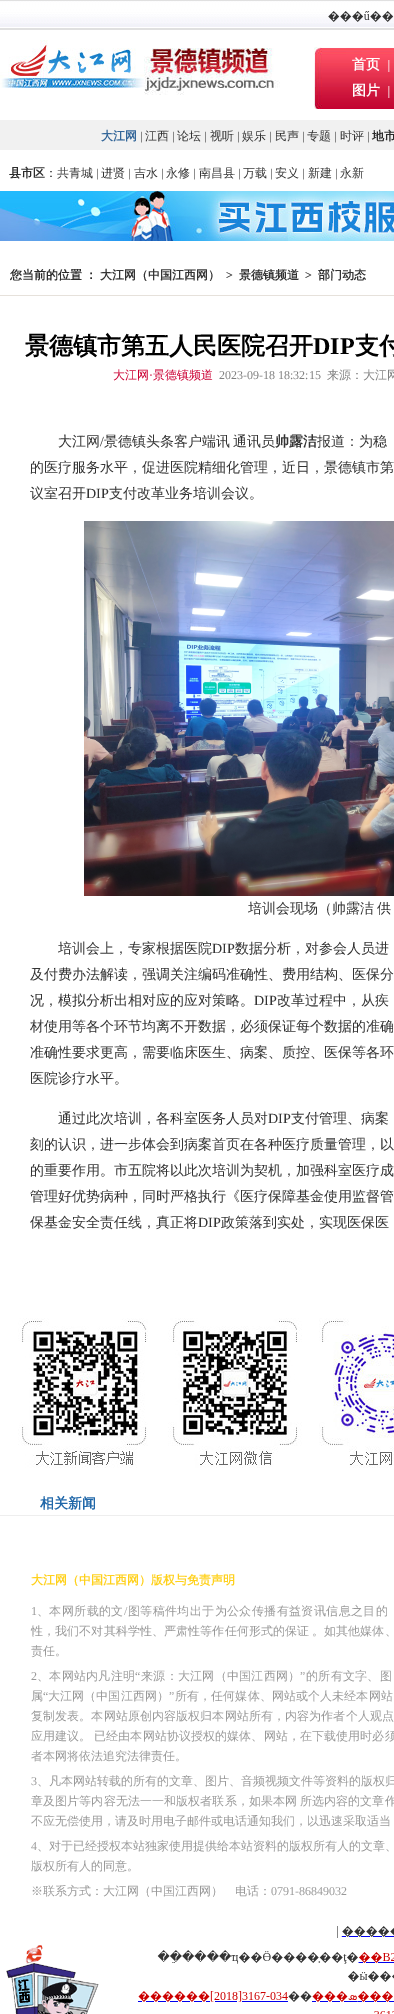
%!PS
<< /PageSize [394 2014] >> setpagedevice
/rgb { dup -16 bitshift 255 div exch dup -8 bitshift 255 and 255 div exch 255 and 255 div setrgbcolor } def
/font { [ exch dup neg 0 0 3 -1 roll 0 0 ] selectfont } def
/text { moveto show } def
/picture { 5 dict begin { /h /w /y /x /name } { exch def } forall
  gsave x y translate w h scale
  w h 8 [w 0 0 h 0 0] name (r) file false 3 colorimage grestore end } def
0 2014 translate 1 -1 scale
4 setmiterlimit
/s1 { /WenQuanYiZenHei-Bold 14 font 16#FFFFFF rgb } def
/s2 { /WenQuanYiZenHei-Medium 12 font 16#FFFFFF rgb } def
/s3 { /WenQuanYiZenHei-Bold 12 font 16#336699 rgb } def
/s4 { /LiberationSerif-Regular 12 font 16#2B2B2B rgb } def
/s5 { /WenQuanYiZenHei-Medium 12 font 16#333333 rgb } def
/s6 { /WenQuanYiZenHei-Bold 12 font 16#2B2B2B rgb } def
/s7 { /WenQuanYiZenHei-Medium 12 font 16#2B2B2B rgb } def
/s8 { /WenQuanYiZenHei-Bold 12 font 16#333333 rgb } def
/s9 { /LiberationSerif-Bold 12 font 16#2B2B2B rgb } def
/s10 { /WenQuanYiZenHei-Bold 24 font 16#000000 rgb } def
/s11 { /LiberationSerif-Bold 24 font 16#000000 rgb } def
/s12 { /WenQuanYiZenHei-Medium 12 font 16#CC0033 rgb } def
/s13 { /LiberationSerif-Regular 12 font 16#CC0033 rgb } def
/s14 { /LiberationSerif-Regular 12 font 16#808080 rgb } def
/s15 { /WenQuanYiZenHei-Medium 12 font 16#808080 rgb } def
/s16 { /WenQuanYiZenHei-Medium 14 font 16#333333 rgb } def
/s17 { /LiberationSerif-Regular 14 font 16#333333 rgb } def
/s18 { /WenQuanYiZenHei-Bold 14 font 16#333333 rgb } def
/s19 { /WenQuanYiZenHei-Bold 14 font 16#2067A9 rgb } def
/s20 { /WenQuanYiZenHei-Bold 12 font 16#FFD11B rgb } def
/s21 { /WenQuanYiZenHei-Medium 12 font 16#999999 rgb } def
/s22 { /LiberationSerif-Regular 12 font 16#999999 rgb } def
16#FFFFFF rgb
0 0 394 2014 rectfill
(pic1.raw) 0 0 394 30 picture
(pic2.raw) 0 40 280 55 picture
(pic3.raw) 314 47 80 62 picture
s1
(首页) 352 69 text
s2
(｜) 383 69 text
s1
(图片) 352 95 text
s2
(｜) 383 95 text
16#F1F1F1 rgb
0 120 394 30 rectfill
s3
(大江网) 101 140 text
s4
(|) 140 140 text
s5
(江西) 145 140 text
s4
(|) 172 140 text
s5
(论坛) 177 140 text
s4
(|) 204 140 text
s5
(视听) 210 140 text
s4
(|) 237 140 text
s5
(娱乐) 242 140 text
s4
(|) 269 140 text
s5
(民声) 275 140 text
s4
(|) 302 140 text
s5
(专题) 307 140 text
s4
(|) 334 140 text
s5
(时评) 340 140 text
s4
(|) 367 140 text
s6
(地市) 372 140 text
(县市区) 9 177 text
s7
(：) 45 177 text
s5
(共青城) 57 177 text
s4
(|) 96 177 text
s5
(进贤) 101 177 text
s4
(|) 128 177 text
s5
(吉水) 134 177 text
s4
(|) 161 177 text
s5
(永修) 166 177 text
s4
(|) 193 177 text
s5
(南昌县) 199 177 text
s4
(|) 238 177 text
s5
(万载) 243 177 text
s4
(|) 270 177 text
s5
(安义) 275 177 text
s4
(|) 302 177 text
s5
(新建) 308 177 text
s4
(|) 335 177 text
s5
(永新) 340 177 text
(pic4.raw) 0 191 394 50 picture
16#E6E1DB rgb
0 295 394 1 rectfill
/WenQuanYiZenHei-Bold 12 font
16#2B2B2B rgb
10 279 moveto -1 0 32 (您当前的位置 ：) widthshow
s8
(大江网（中国江西网）) 100 279 text
s9
(>) 226 279 text
s8
(景德镇频道) 239 279 text
s9
(>) 305 279 text
s8
(部门动态) 318 279 text
s10
(景德镇市第五人民医院召开) 25 354 text
s11
(DIP) 313 354 text
s10
(支付) 355 354 text
s12
(大江网) 113 379 text
s13
(·) 149 379 text
s12
(景德镇频道) 153 379 text
s14
(2023-09-18 18:32:15) 219 379 text
s15
(来源：大江网) 327 379 text
s16
(大江网) 58 446 text
s17
(/) 100 446 text
/WenQuanYiZenHei-Medium 14 font
104 446 moveto -1 0 32 (景德镇头条客户端讯 通讯员) widthshow
s18
(帅露洁) 275 446 text
s16
(报道：为稳) 317 446 text
(的医疗服务水平，促进医院精细化管理，近日，景德镇市第) 30 472 text
(议室召开) 30 498 text
s17
(DIP) 86 498 text
s16
(支付改革业务培训会议。) 109 498 text
(pic5.raw) 84 521 310 375 picture
248 913 moveto -1 0 32 (培训会现场（帅露洁 供) widthshow
(培训会上，专家根据医院) 58 953 text
s17
(DIP) 212 953 text
s16
(数据分析，对参会人员进) 235 953 text
(及付费办法解读，强调关注编码准确性、费用结构、医保分) 30 979 text
(况，模拟分析出相对应的应对策略。) 30 1005 text
s17
(DIP) 254 1005 text
s16
(改革过程中，从疾) 277 1005 text
(材使用等各个环节均离不开数据，必须保证每个数据的准确) 30 1031 text
(准确性要求更高，需要临床医生、病案、质控、医保等各环) 30 1057 text
(医院诊疗水平。) 30 1083 text
(通过此次培训，各科室医务人员对) 58 1123 text
s17
(DIP) 268 1123 text
s16
(支付管理、病案) 291 1123 text
(刻的认识，进一步体会到病案首页在各种医疗质量管理，以) 30 1149 text
(的重要作用。市五院将以此次培训为契机，加强科室医疗成) 30 1175 text
(管理好优势病种，同时严格执行《医疗保障基金使用监督管) 30 1201 text
(保基金安全责任线，真正将) 30 1227 text
s17
(DIP) 198 1227 text
s16
(政策落到实处，实现医保医) 221 1227 text
(pic6.raw) 18 1318 130 150 picture
(pic7.raw) 168 1318 134 150 picture
(pic8.raw) 319 1318 75 150 picture
s19
(相关新闻) 40 1508 text
16#EEEEEE rgb
0 1515 394 1 rectfill
s20
(大江网（中国江西网）版权与免责声明) 31 1584 text
/LiberationSerif-Regular 12 font
16#999999 rgb
31 1615 moveto 0.4 0 (1) ashow
/WenQuanYiZenHei-Medium 12 font
37 1615 moveto 0.4 0 (、本网所载的文 图等稿件均出于为公众传播有益资讯信息之目的) ashow
/LiberationSerif-Regular 12 font
124 1615 moveto 0.4 0 (/) ashow
/WenQuanYiZenHei-Medium 12 font
31 1635 moveto -1 0 32 0.1 0 (性，我们不对其科学性、严肃性等作任何形式的保证 。如其他媒体、) awidthshow
(责任。) 31 1655 text
/LiberationSerif-Regular 12 font
31 1680 moveto 0.25 0 (2) ashow
/WenQuanYiZenHei-Medium 12 font
37 1680 moveto 0.25 0 (、本网站内凡注明) ashow
/LiberationSerif-Regular 12 font
135 1680 moveto 0.25 0 (“) ashow
/WenQuanYiZenHei-Medium 12 font
141 1680 moveto 0.25 0 (来源：大江网（中国江西网）) ashow
/LiberationSerif-Regular 12 font
300 1680 moveto 0.25 0 (”) ashow
/WenQuanYiZenHei-Medium 12 font
306 1680 moveto 0.25 0 (的所有文字、图) ashow
31 1700 moveto 0.1 0 (属) ashow
/LiberationSerif-Regular 12 font
43 1700 moveto 0.1 0 (“) ashow
/WenQuanYiZenHei-Medium 12 font
48 1700 moveto 0.1 0 (大江网（中国江西网）) ashow
/LiberationSerif-Regular 12 font
169 1700 moveto 0.1 0 (”) ashow
/WenQuanYiZenHei-Medium 12 font
175 1700 moveto -1 0 32 0.1 0 (所有，任何媒体、网站或个人未经本网站) awidthshow
31 1720 moveto 0.1 0 (复制发表。本网站原创内容版权归本网站所有，内容为作者个人观点) ashow
31 1740 moveto -1 0 32 0.1 0 (应用建议。 已经由本网站协议授权的媒体、网站，在下载使用时必须) awidthshow
(者本网将依法追究法律责任。) 31 1760 text
s22
(3) 31 1785 text
s21
(、凡本网站转载的所有的文章、图片、音频视频文件等资料的版权归) 37 1785 text
31 1805 moveto -1 0 32 0.1 0 (章及图片等内容无法一一和版权者联系，如果本网 所选内容的文章作) awidthshow
31 1825 moveto -1 0 32 (不应无偿使用，请及时用电子邮件或电话通知我们，以迅速采取适当) widthshow
s22
(4) 31 1850 text
s21
(、对于已经授权本站独家使用提供给本站资料的版权所有人的文章、) 37 1850 text
(版权所有人的同意。) 31 1870 text
(※联系方式：大江网（中国江西网）　电话：) 31 1895 text
s22
(0791-86849032) 271 1895 text
(pic9.raw) 6 1926 388 88 picture
showpage
